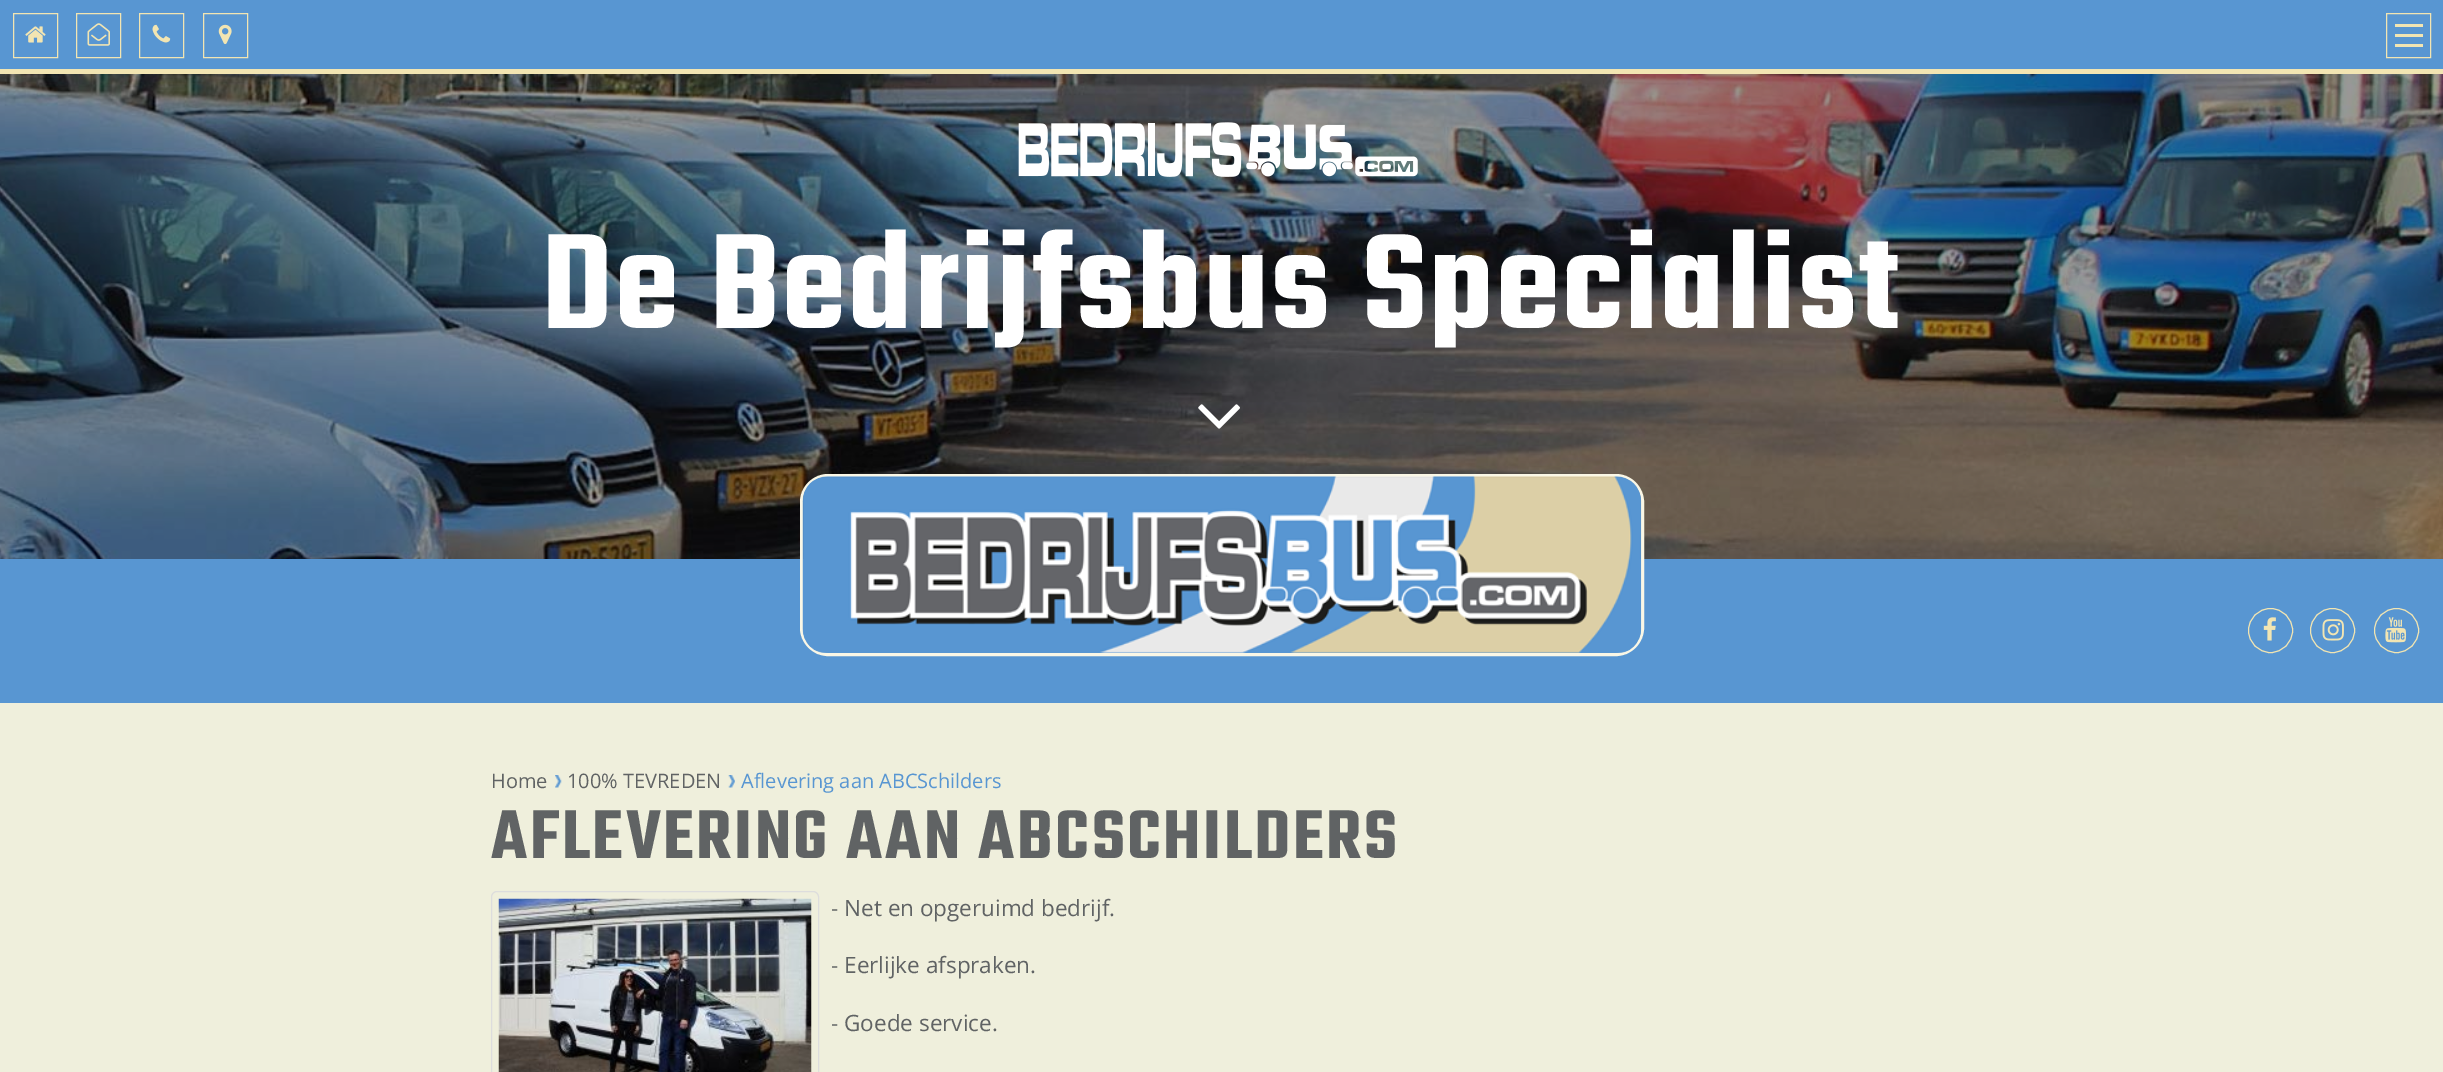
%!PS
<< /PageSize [2443 1072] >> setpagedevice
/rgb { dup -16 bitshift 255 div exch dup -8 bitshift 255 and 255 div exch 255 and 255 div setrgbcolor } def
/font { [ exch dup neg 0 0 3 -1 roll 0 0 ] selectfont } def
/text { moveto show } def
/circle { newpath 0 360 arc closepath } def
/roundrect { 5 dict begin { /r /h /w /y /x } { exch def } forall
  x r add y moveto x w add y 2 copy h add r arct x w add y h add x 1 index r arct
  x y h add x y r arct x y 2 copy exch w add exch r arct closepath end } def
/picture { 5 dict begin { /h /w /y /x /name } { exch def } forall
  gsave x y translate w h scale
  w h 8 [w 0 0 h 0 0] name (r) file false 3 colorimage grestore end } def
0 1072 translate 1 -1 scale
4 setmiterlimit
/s1 { /OpenSans-Regular 20 font 16#606364 rgb } def
/s2 { /OpenSans-Regular 20 font 16#5896D2 rgb } def
/s3 { /OpenSans-Regular 22.5 font 16#606364 rgb } def
16#EFEFDC rgb
0 0 2443 1072 rectfill
16#5896D2 rgb
0 0 2443 69 rectfill
16#F2E5B2 rgb
0 69 2443 5 rectfill
13.5 13.5 44 44 rectstroke
(pic1.raw) 25 26 21 17 picture
76.5 13.5 44 44 rectstroke
(pic2.raw) 87 23 23 23 picture
139.5 13.5 44 44 rectstroke
(pic3.raw) 152 24 19 19 picture
203.5 13.5 44 44 rectstroke
(pic4.raw) 218 24 14 21 picture
2386.5 13.5 44 44 rectstroke
2395 24 28 3 rectfill
2395 34 28 3 rectfill
2395 44 28 3 rectfill
(pic5.raw) 0 74 2443 485 picture
(pic6.raw) 1018 122 400 55 picture
/Teko-SemiBold 147.5 font
16#FFFFFF rgb
541 328 moveto 2.5 0 (De Bedrijfsbus Specialist) ashow
(pic7.raw) 1198 404 42 25 picture
16#5896D2 rgb
0 559 2443 144 rectfill
16#FAF7E6 rgb
3 setlinewidth
801.5 475.5 841 179 26.5 roundrect stroke
(pic8.raw) 802 476 840 177 picture
16#F2E5B2 rgb
1 setlinewidth
2270.5 630.5 22 circle stroke
(pic9.raw) 2263 617 13 24 picture
2332.5 630.5 22 circle stroke
(pic10.raw) 2322 619 22 22 picture
2396.5 630.5 22 circle stroke
(pic11.raw) 2385 617 22 26 picture
s1
(Home) 491 788 text
(pic12.raw) 555 775 7 13 picture
(100% TEVREDEN) 567 788 text
(pic13.raw) 728 775 7 13 picture
s2
(Aflevering aan ABCSchilders) 741 788 text
/Teko-SemiBold 75 font
16#606364 rgb
491 858 moveto 2.5 0 (AFLEVERING AAN ABCSCHILDERS) ashow
16#DDDDDD rgb
491.5 891.5 327 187 5.5 roundrect stroke
(pic14.raw) 498 898 314 174 picture
s3
(- Net en opgeruimd bedrijf.) 831 916 text
(- Eerlijke afspraken.) 831 973 text
(- Goede service.) 831 1031 text
showpage
